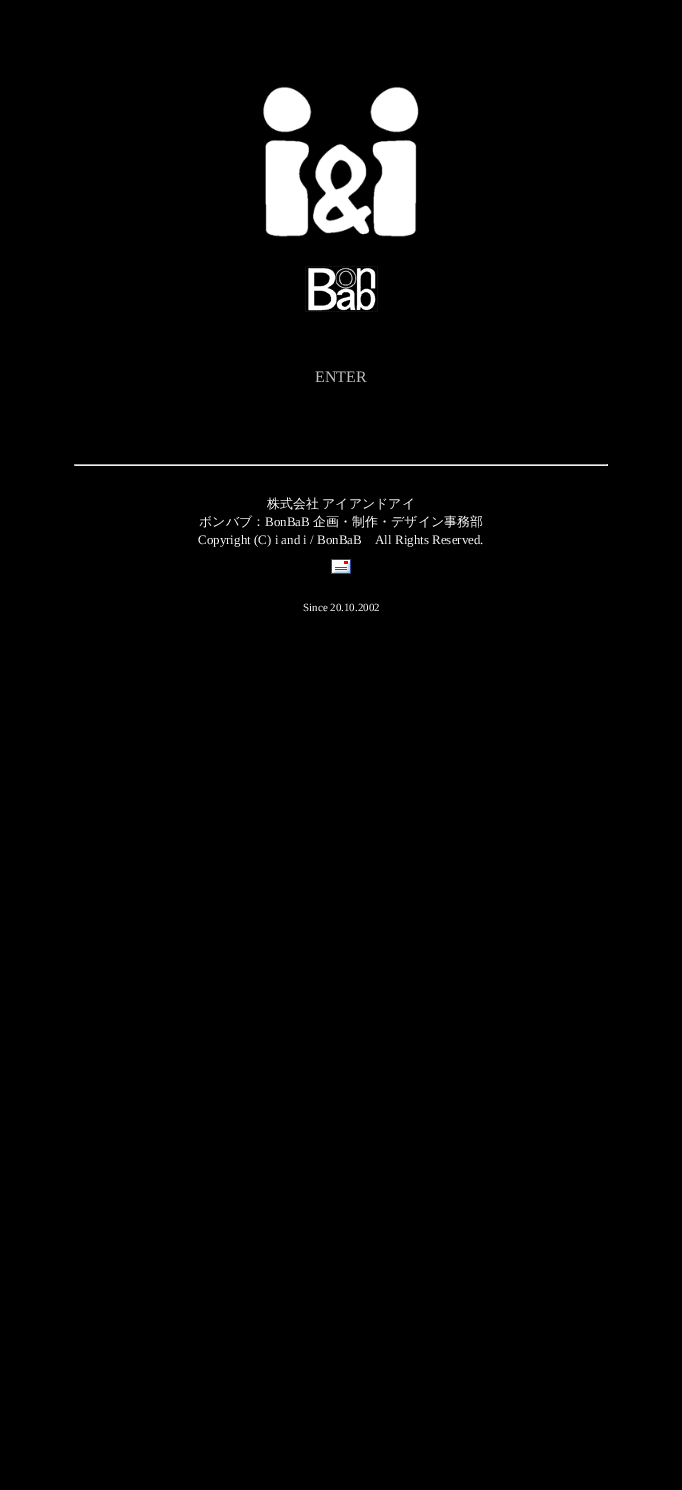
%!PS
<< /PageSize [682 1490] >> setpagedevice
/rgb { dup -16 bitshift 255 div exch dup -8 bitshift 255 and 255 div exch 255 and 255 div setrgbcolor } def
/font { [ exch dup neg 0 0 3 -1 roll 0 0 ] selectfont } def
/text { moveto show } def
/picture { 5 dict begin { /h /w /y /x /name } { exch def } forall
  gsave x y translate w h scale
  w h 8 [w 0 0 h 0 0] name (r) file false 3 colorimage grestore end } def
0 1490 translate 1 -1 scale
4 setmiterlimit
/s1 { /LiberationSerif-Regular 16 font 16#C0C0C0 rgb } def
/s2 { /WenQuanYiZenHei-Medium 13 font 16#F5F5F5 rgb } def
/s3 { /LiberationSerif-Regular 13 font 16#F5F5F5 rgb } def
/s4 { /LiberationSerif-Regular 11 font 16#F5F5F5 rgb } def
16#000000 rgb
0 0 682 1490 rectfill
(pic1.raw) 263 86 156 151 picture
(pic2.raw) 305 266 73 46 picture
s1
(ENTER) 315 382 text
16#9F9F9F rgb
74 464 534 1 rectfill
16#EEEEEE rgb
607 464 1 2 rectfill
74 465 534 1 rectfill
16#9F9F9F rgb
74 464 1 2 rectfill
/WenQuanYiZenHei-Medium 13 font
16#F5F5F5 rgb
267 508 moveto -1 0 32 (株式会社 アイアンドアイ) widthshow
(ボンバブ：) 199 526 text
s3
(BonBaB) 265 526 text
s2
(企画・制作・デザイン事務部) 313 526 text
s3
(Copyright \(C\) i and i / BonBaB) 198 544 text
(All Rights Reserved.) 375 544 text
(pic3.raw) 331 559 20 15 picture
s4
(Since 20.10.2002) 303 611 text
showpage
